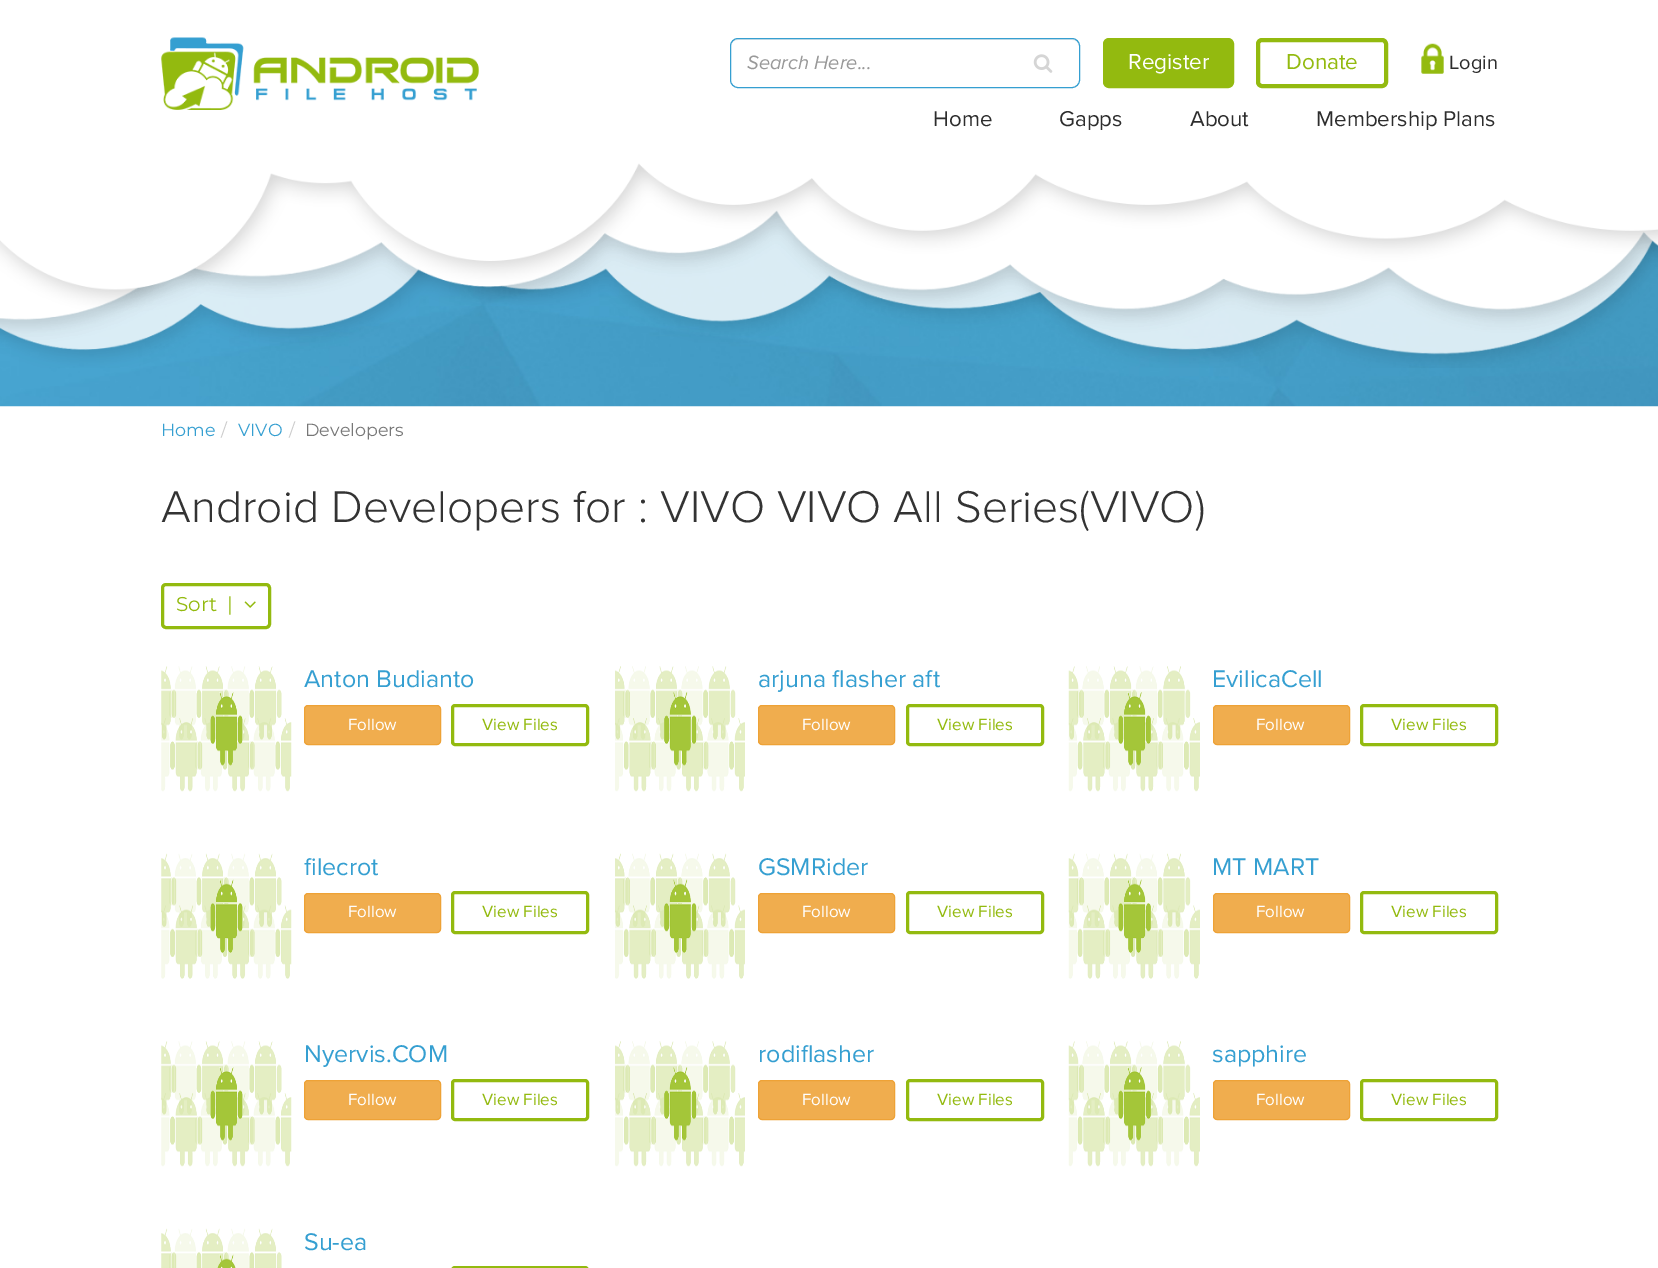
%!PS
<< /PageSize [1658 1268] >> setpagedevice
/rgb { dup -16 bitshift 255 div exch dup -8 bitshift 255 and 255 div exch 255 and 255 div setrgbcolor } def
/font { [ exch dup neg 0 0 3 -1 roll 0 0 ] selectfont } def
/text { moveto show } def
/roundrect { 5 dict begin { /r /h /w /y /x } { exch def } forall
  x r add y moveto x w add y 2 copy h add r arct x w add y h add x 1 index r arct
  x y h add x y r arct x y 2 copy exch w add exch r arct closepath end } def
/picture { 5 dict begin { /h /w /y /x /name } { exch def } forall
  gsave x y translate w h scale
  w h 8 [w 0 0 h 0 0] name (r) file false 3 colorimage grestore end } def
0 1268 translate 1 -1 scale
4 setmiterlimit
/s1 { /ProximaNova-Italic 20 font 16#999999 rgb } def
/s2 { /ProximaNova-Regular 22.5 font 16#FFFFFF rgb } def
/s3 { /ProximaNova-Regular 22.5 font 16#93BA0F rgb } def
/s4 { /ProximaNova-Regular 20 font 16#2D2D2D rgb } def
/s5 { /ProximaNova-Regular 22.25 font 16#2D2D2D rgb } def
/s6 { /Montserrat-Regular 17.5 font 16#359FD1 rgb } def
/s7 { /Montserrat-Regular 17.5 font 16#CCCCCC rgb } def
/s8 { /Montserrat-Regular 17.5 font 16#777777 rgb } def
/s9 { /ProximaNova-Light 46 font 16#333333 rgb } def
/s10 { /Montserrat-Regular 20 font 16#93BA0F rgb } def
/s11 { /ProximaNova-Regular 25 font 16#359FD1 rgb } def
/s12 { /ProximaNova-Regular 17 font 16#FFFFFF rgb } def
/s13 { /ProximaNova-Regular 17 font 16#93BA0F rgb } def
16#FFFFFF rgb
0 0 1658 1268 rectfill
(pic1.raw) 161 37 318 73 picture
16#ECECEC rgb
738 40 moveto 1072 40 lineto 1076 40 1079 43 1079 46 curveto 1079 42 1077 39 1073 39 curveto 737 39 lineto 733 39 731 42 731 46 curveto 731 43 734 40 738 40 curveto closepath fill
16#359FD1 rgb
730.5 38.5 349 49 7.5 roundrect stroke
s1
(Search Here...) 747 69 text
(pic2.raw) 1033 54 20 19 picture
16#93BA0F rgb
1105 40 127 46 4 roundrect gsave fill grestore
4 setlinewidth
stroke
s2
(Register) 1128 69 text
16#93BA0F rgb
1258 40 128 46 4 roundrect stroke
(Donate) 1286 69 text
(pic3.raw) 1421 43 23 31 picture
s4
(Login) 1449 69 text
s5
(Home) 933 126 text
(Gapps) 1059 126 text
(About) 1190 126 text
(Membership Plans) 1316 126 text
(pic4.raw) 0 210 1658 197 picture
(pic5.raw) 0 140 1658 228 picture
s6
(Home) 161 436 text
s7
(/) 221 436 text
s6
(VIVO) 238 436 text
s7
(/) 289 436 text
s8
(Developers) 305 436 text
s9
(Android Developers for : VIVO VIVO All Series\(VIVO\)) 161 522 text
16#93BA0F rgb
3 setlinewidth
162.5 584.5 107 43 3.5 roundrect stroke
s10
(Sort) 176 611 text
(|) 227 611 text
(pic6.raw) 244 601 12 7 picture
(pic7.raw) 161 666 131 126 picture
s11
(Anton Budianto) 304 687 text
16#F0AD4E rgb
304.5 705.5 136 39 3.5 roundrect gsave fill grestore
16#EEA236 rgb
1 setlinewidth
stroke
s12
(Follow) 348 730 text
16#93BA0F rgb
3 setlinewidth
452.5 705.5 135 39 2.5 roundrect stroke
(View Files) 482 730 text
(pic8.raw) 615 666 130 126 picture
s11
(arjuna flasher aft) 758 687 text
16#F0AD4E rgb
758.5 705.5 136 39 3.5 roundrect gsave fill grestore
16#EEA236 rgb
1 setlinewidth
stroke
s12
(Follow) 802 730 text
16#93BA0F rgb
3 setlinewidth
907.5 705.5 135 39 2.5 roundrect stroke
(View Files) 937 730 text
(pic9.raw) 1068 666 132 126 picture
s11
(EvilicaCell) 1212 687 text
16#F0AD4E rgb
1213.5 705.5 136 39 3.5 roundrect gsave fill grestore
16#EEA236 rgb
1 setlinewidth
stroke
s12
(Follow) 1256 730 text
16#93BA0F rgb
3 setlinewidth
1361.5 705.5 135 39 2.5 roundrect stroke
(View Files) 1391 730 text
(pic10.raw) 161 853 131 126 picture
s11
(filecrot) 304 875 text
16#F0AD4E rgb
304.5 893.5 136 39 3.5 roundrect gsave fill grestore
16#EEA236 rgb
1 setlinewidth
stroke
s12
(Follow) 348 917 text
16#93BA0F rgb
3 setlinewidth
452.5 892.5 135 40 2.5 roundrect stroke
(View Files) 482 917 text
(pic11.raw) 615 853 130 126 picture
s11
(GSMRider) 758 875 text
16#F0AD4E rgb
758.5 893.5 136 39 3.5 roundrect gsave fill grestore
16#EEA236 rgb
1 setlinewidth
stroke
s12
(Follow) 802 917 text
16#93BA0F rgb
3 setlinewidth
907.5 892.5 135 40 2.5 roundrect stroke
(View Files) 937 917 text
(pic12.raw) 1068 853 132 126 picture
s11
(MT MART) 1212 875 text
16#F0AD4E rgb
1213.5 893.5 136 39 3.5 roundrect gsave fill grestore
16#EEA236 rgb
1 setlinewidth
stroke
s12
(Follow) 1256 917 text
16#93BA0F rgb
3 setlinewidth
1361.5 892.5 135 40 2.5 roundrect stroke
(View Files) 1391 917 text
(pic13.raw) 161 1041 131 126 picture
s11
(Nyervis.COM) 304 1062 text
16#F0AD4E rgb
304.5 1080.5 136 39 3.5 roundrect gsave fill grestore
16#EEA236 rgb
1 setlinewidth
stroke
s12
(Follow) 348 1105 text
16#93BA0F rgb
3 setlinewidth
452.5 1080.5 135 39 2.5 roundrect stroke
(View Files) 482 1105 text
(pic14.raw) 615 1041 130 126 picture
s11
(rodiflasher) 758 1062 text
16#F0AD4E rgb
758.5 1080.5 136 39 3.5 roundrect gsave fill grestore
16#EEA236 rgb
1 setlinewidth
stroke
s12
(Follow) 802 1105 text
16#93BA0F rgb
3 setlinewidth
907.5 1080.5 135 39 2.5 roundrect stroke
(View Files) 937 1105 text
(pic15.raw) 1068 1041 132 126 picture
s11
(sapphire) 1212 1062 text
16#F0AD4E rgb
1213.5 1080.5 136 39 3.5 roundrect gsave fill grestore
16#EEA236 rgb
1 setlinewidth
stroke
s12
(Follow) 1256 1105 text
16#93BA0F rgb
3 setlinewidth
1361.5 1080.5 135 39 2.5 roundrect stroke
(View Files) 1391 1105 text
(pic16.raw) 161 1228 121 40 picture
s11
(Su-ea) 304 1250 text
16#93BA0F rgb
452.5 1267.5 135 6 2.5 roundrect stroke
showpage
